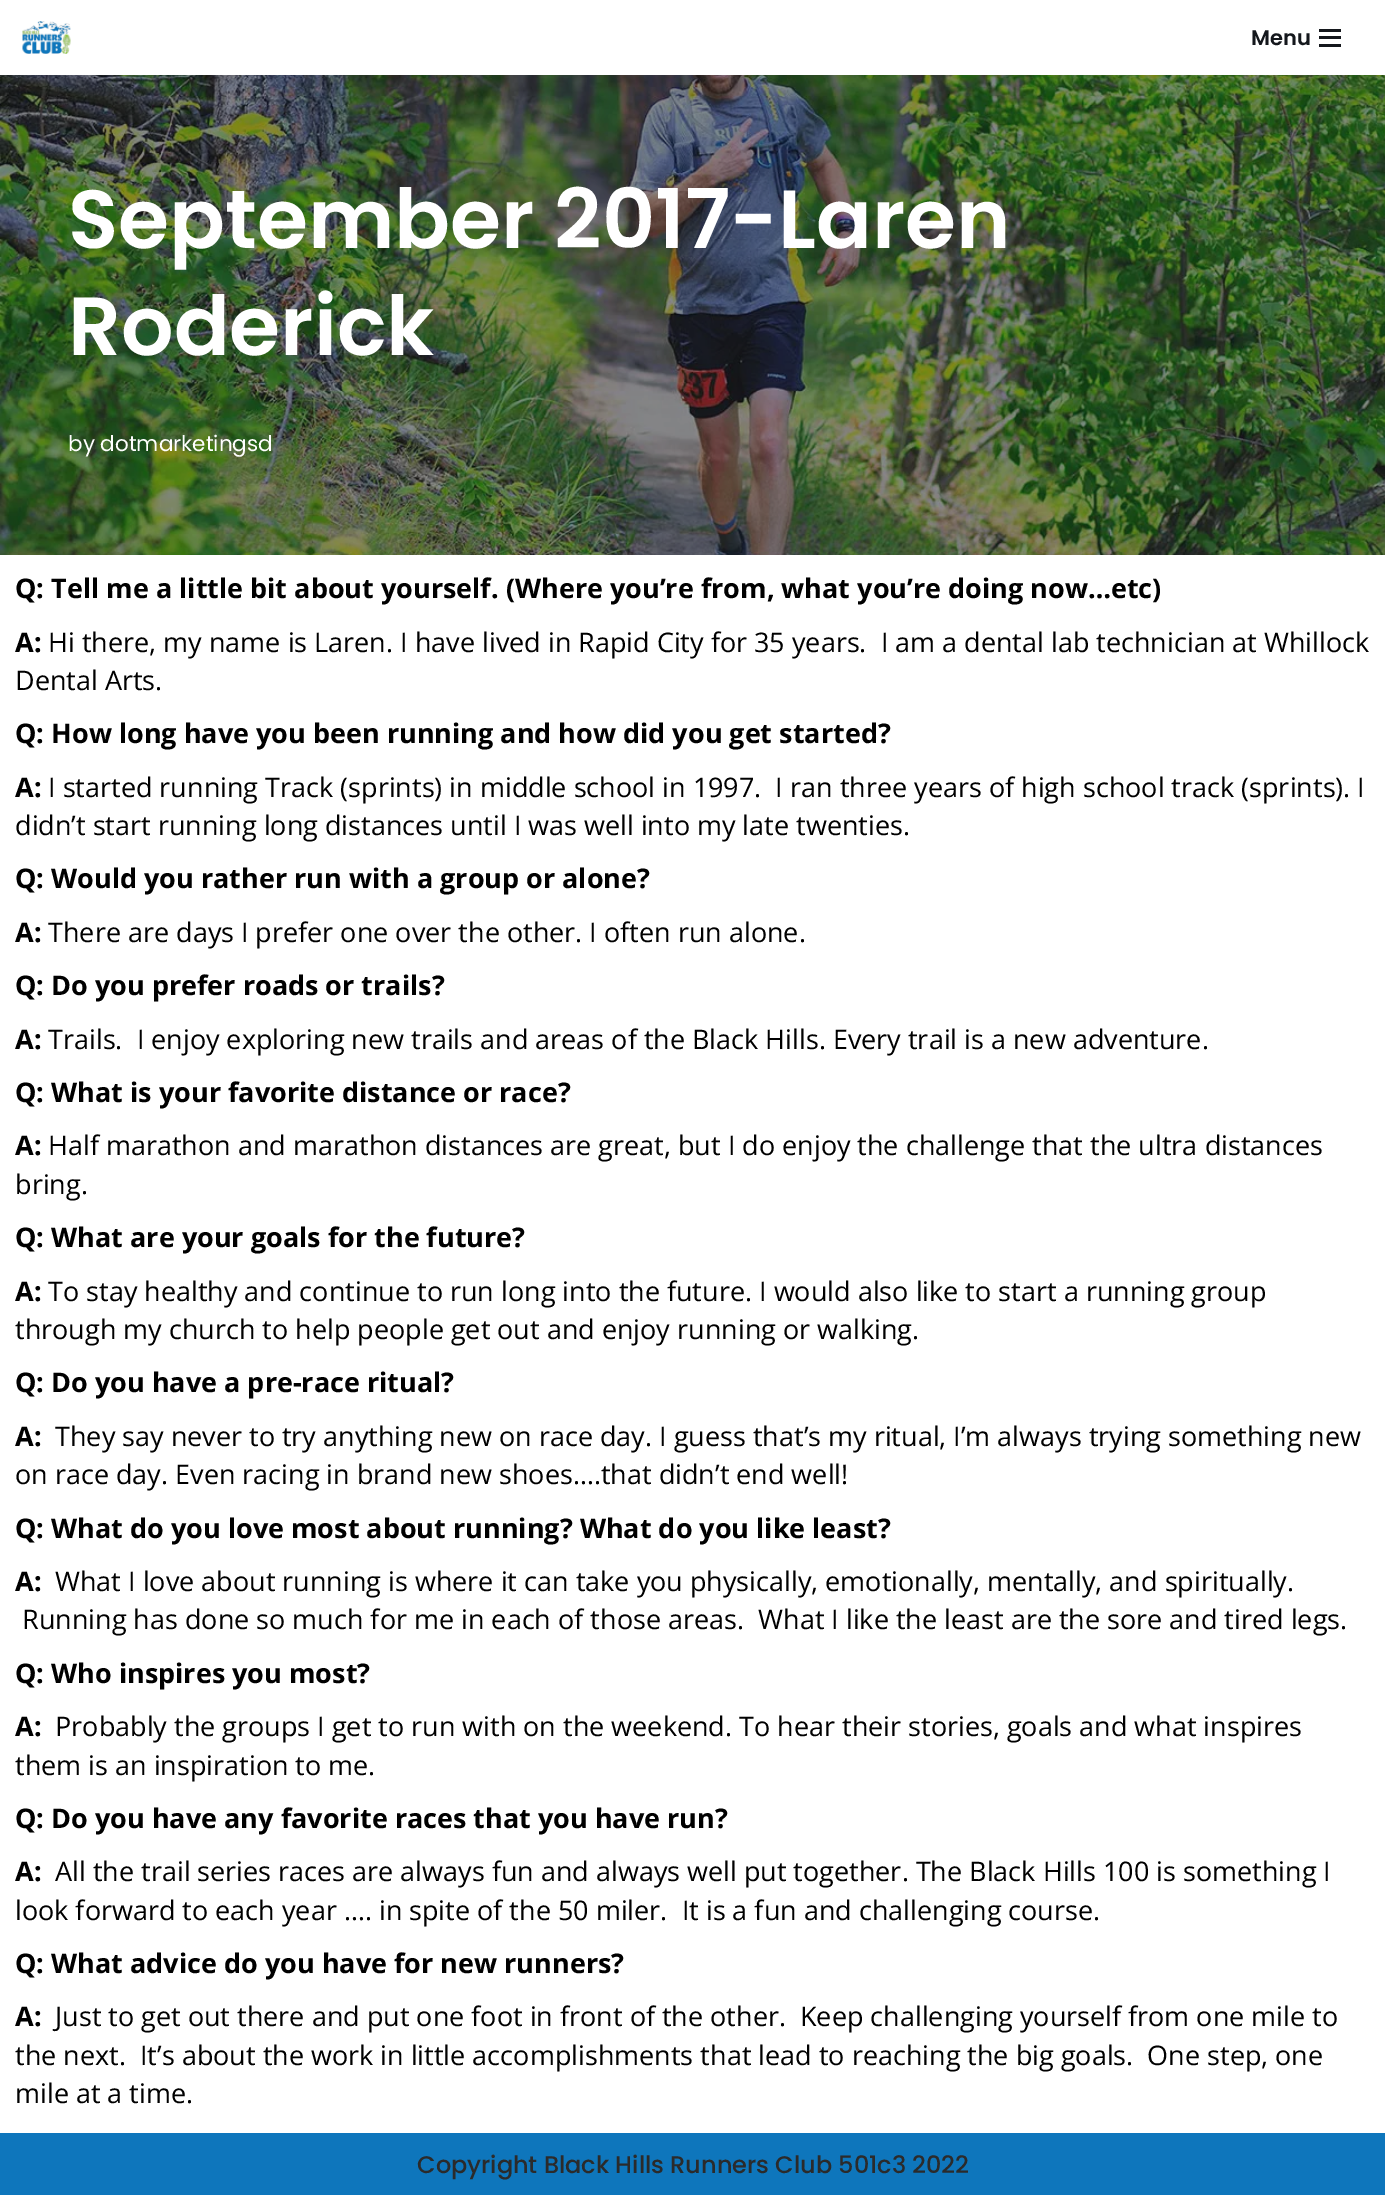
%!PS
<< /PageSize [1385 2195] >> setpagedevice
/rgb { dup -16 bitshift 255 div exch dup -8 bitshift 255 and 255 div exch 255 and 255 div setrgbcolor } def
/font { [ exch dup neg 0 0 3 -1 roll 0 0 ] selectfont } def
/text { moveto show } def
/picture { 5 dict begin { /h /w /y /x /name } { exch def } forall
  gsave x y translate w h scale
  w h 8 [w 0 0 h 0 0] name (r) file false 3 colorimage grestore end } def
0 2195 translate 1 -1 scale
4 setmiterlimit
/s1 { /Poppins-SemiBold 21 font 16#14171C rgb } def
/s2 { /Poppins-SemiBold 82.5 font 16#FFFFFF rgb } def
/s3 { /Poppins-Regular 21.5 font 16#FFFFFF rgb } def
/s4 { /OpenSans-Bold 27 font 16#000000 rgb } def
/s5 { /OpenSans-Regular 27 font 16#000000 rgb } def
/s6 { /Poppins-Medium 24 font 16#2B2B2B rgb } def
16#FFFFFF rgb
0 0 1385 2195 rectfill
(pic1.raw) 22 21 49 33 picture
s1
(Menu) 1251 45 text
1319 29 22 3 rectfill
1319 36 22 3 rectfill
1319 44 22 3 rectfill
(pic2.raw) 0 75 1385 480 picture
s2
(September 2017-Laren) 68 248 text
(Roderick) 68 355 text
s3
(by dotmarketingsd) 68 451 text
s4
(Q: Tell me a little bit about yourself. \(Where you’re from, what you’re doing now…etc\)) 15 598 text
(A:) 15 652 text
s5
(Hi there, my name is Laren. I have lived in Rapid City for 35 years.  I am a dental lab technician at Whillock) 48 652 text
(Dental Arts.) 15 690 text
s4
(Q: How long have you been running and how did you get started?) 15 743 text
(A:) 15 797 text
s5
(I started running Track \(sprints\) in middle school in 1997.  I ran three years of high school track \(sprints\). I) 48 797 text
(didn’t start running long distances until I was well into my late twenties.) 15 835 text
s4
(Q: Would you rather run with a group or alone?) 15 888 text
(A:) 15 942 text
s5
(There are days I prefer one over the other. I often run alone.) 48 942 text
s4
(Q: Do you prefer roads or trails?) 15 995 text
(A:) 15 1049 text
s5
(Trails.  I enjoy exploring new trails and areas of the Black Hills. Every trail is a new adventure.) 48 1049 text
s4
(Q: What is your favorite distance or race?) 15 1102 text
(A:) 15 1155 text
s5
(Half marathon and marathon distances are great, but I do enjoy the challenge that the ultra distances) 48 1155 text
(bring.) 15 1194 text
s4
(Q: What are your goals for the future?) 15 1247 text
(A:) 15 1301 text
s5
(To stay healthy and continue to run long into the future. I would also like to start a running group) 48 1301 text
(through my church to help people get out and enjoy running or walking.) 15 1339 text
s4
(Q: Do you have a pre-race ritual?) 15 1392 text
(A:) 15 1446 text
s5
(They say never to try anything new on race day. I guess that’s my ritual, I’m always trying something new) 55 1446 text
(on race day. Even racing in brand new shoes….that didn’t end well!) 15 1484 text
s4
(Q: What do you love most about running? What do you like least?) 15 1538 text
(A:) 15 1591 text
s5
(What I love about running is where it can take you physically, emotionally, mentally, and spiritually.) 55 1591 text
(Running has done so much for me in each of those areas.  What I like the least are the sore and tired legs.) 22 1629 text
s4
(Q: Who inspires you most?) 15 1683 text
(A:) 15 1736 text
s5
(Probably the groups I get to run with on the weekend. To hear their stories, goals and what inspires) 55 1736 text
(them is an inspiration to me.) 15 1775 text
s4
(Q: Do you have any favorite races that you have run?) 15 1828 text
(A:) 15 1881 text
s5
(All the trail series races are always fun and always well put together. The Black Hills 100 is something I) 55 1881 text
(look forward to each year …. in spite of the 50 miler.  It is a fun and challenging course.) 15 1920 text
s4
(Q: What advice do you have for new runners?) 15 1973 text
(A:) 15 2026 text
s5
(Just to get out there and put one foot in front of the other.  Keep challenging yourself from one mile to) 55 2026 text
(the next.  It’s about the work in little accomplishments that lead to reaching the big goals.  One step, one) 15 2065 text
(mile at a time.) 15 2103 text
16#0E76BC rgb
0 2133 1385 62 rectfill
s6
(Copyright Black Hills Runners Club 501c3 2022) 417 2173 text
showpage
